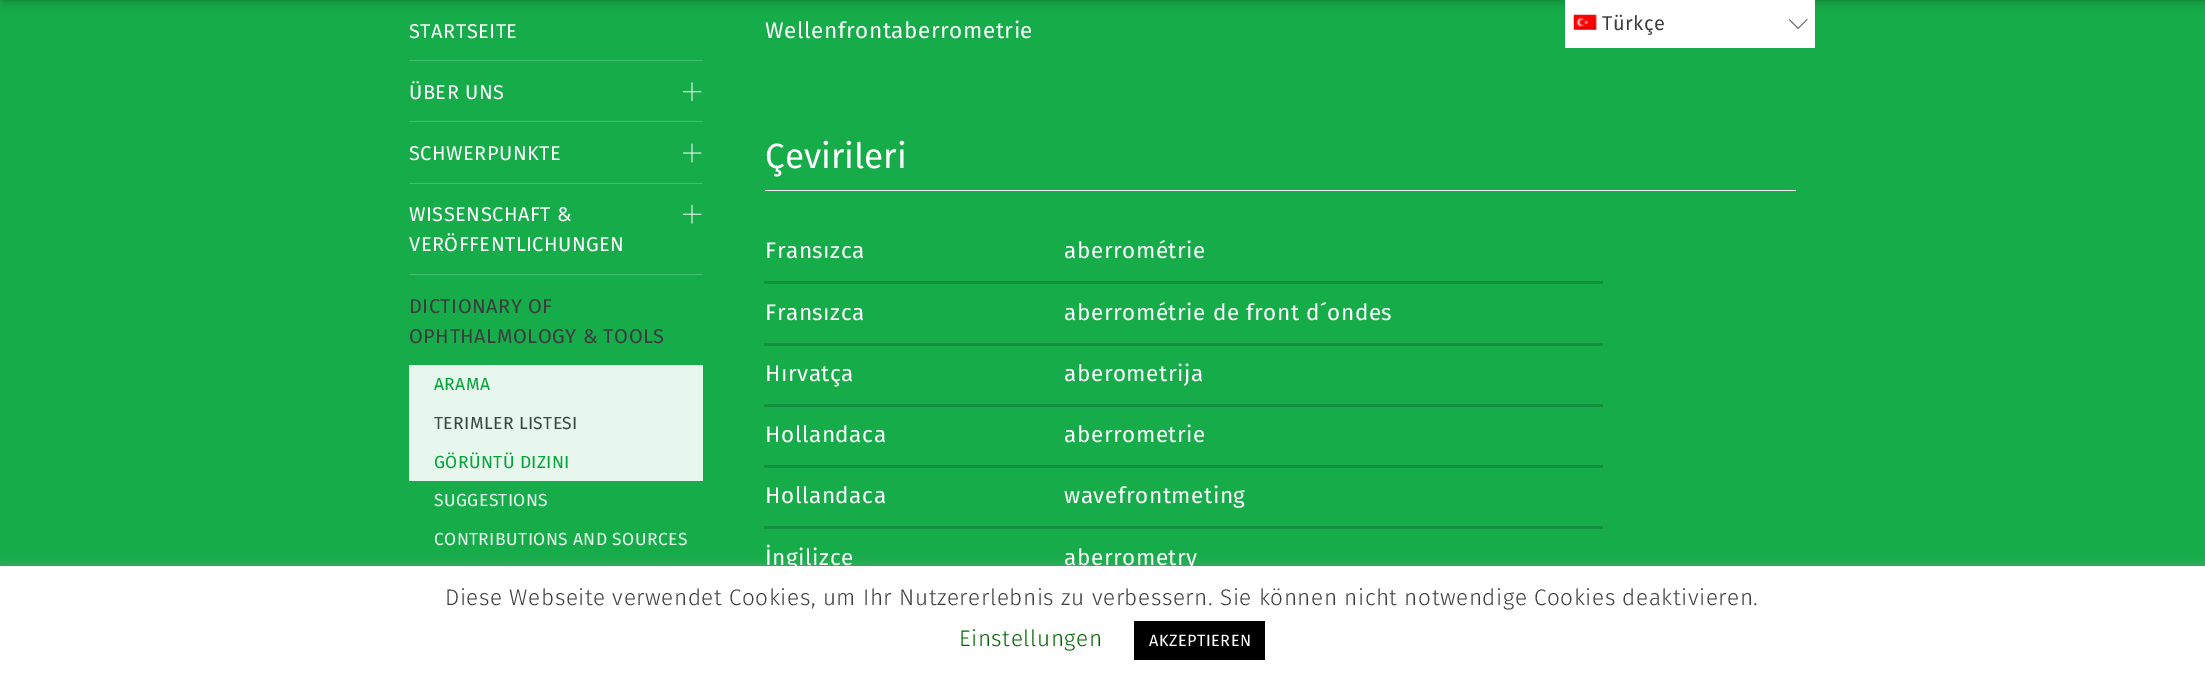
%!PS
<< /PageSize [2205 681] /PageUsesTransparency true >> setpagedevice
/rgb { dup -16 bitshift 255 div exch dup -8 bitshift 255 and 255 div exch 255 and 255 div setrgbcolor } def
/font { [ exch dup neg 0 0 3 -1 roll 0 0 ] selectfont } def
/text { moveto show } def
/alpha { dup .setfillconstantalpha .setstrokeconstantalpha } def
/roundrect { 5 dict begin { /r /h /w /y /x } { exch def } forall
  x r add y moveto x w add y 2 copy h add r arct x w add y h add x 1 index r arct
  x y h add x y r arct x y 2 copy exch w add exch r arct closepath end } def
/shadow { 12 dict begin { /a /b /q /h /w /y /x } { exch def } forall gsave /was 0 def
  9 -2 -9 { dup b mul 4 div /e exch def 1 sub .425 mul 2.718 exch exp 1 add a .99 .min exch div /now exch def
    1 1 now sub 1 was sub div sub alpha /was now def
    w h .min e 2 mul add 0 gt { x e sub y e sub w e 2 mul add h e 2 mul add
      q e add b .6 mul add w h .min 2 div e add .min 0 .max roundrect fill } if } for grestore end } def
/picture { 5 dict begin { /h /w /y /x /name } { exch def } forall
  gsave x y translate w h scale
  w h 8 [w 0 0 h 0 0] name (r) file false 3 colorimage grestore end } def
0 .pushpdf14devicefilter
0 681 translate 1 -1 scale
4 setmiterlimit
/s1 { /FiraSans-Regular 35 font 16#FFFFFF rgb } def
16#16AC4A rgb
0 0 2205 681 rectfill
16#45BD6E rgb
409 60 294 1 rectfill
/FiraSans-Regular 20 font
16#FFFFFF rgb
409 38 moveto 0.5 0 (STARTSEITE) ashow
16#45BD6E rgb
409 121 294 1 rectfill
16#FFFFFF rgb
409 99 moveto 0.5 0 (ÜBER UNS) ashow
(pic1.raw) 683 82 19 19 picture
16#45BD6E rgb
409 183 294 1 rectfill
16#FFFFFF rgb
409 160 moveto 0.5 0 (SCHWERPUNKTE) ashow
(pic2.raw) 683 143 19 20 picture
16#45BD6E rgb
409 274 294 1 rectfill
16#FFFFFF rgb
409 221 moveto 0.5 0 (WISSENSCHAFT &) ashow
(pic3.raw) 683 204 19 20 picture
409 251 moveto 0.5 0 (VERÖFFENTLICHUNGEN) ashow
16#3C3C3E rgb
409 313 moveto 0.5 0 (DICTIONARY OF) ashow
409 343 moveto 0.5 0 (OPHTHALMOLOGY & TOOLS) ashow
16#E8F7ED rgb
409 365 294 116 rectfill
/FiraSans-Regular 17.5 font
16#02A43A rgb
434 390 moveto 0.4 0 (ARAMA) ashow
16#38473F rgb
434 429 moveto 0.4 0 (TERIMLER LISTESI) ashow
16#02A43A rgb
434 468 moveto 0.4 0 (GÖRÜNTÜ DIZINI) ashow
16#E8F7ED rgb
434 506 moveto 0.4 0 (SUGGESTIONS) ashow
434 545 moveto 0.4 0 (CONTRIBUTIONS AND SOURCES) ashow
/FiraSans-Regular 22.5 font
16#FFFFFF rgb
765 38 moveto 0.56 0 (Wellenfrontaberrometrie) ashow
765 190 1031 1 rectfill
s1
(Çevirileri) 765 168 text
/FiraSans-Regular 22.5 font
765 258 moveto 0.56 0 (Fransızca) ashow
16#138F3E rgb
764 281 839 3 rectfill
16#FFFFFF rgb
1064 258 moveto 0.56 0 (aberrométrie) ashow
765 320 moveto 0.56 0 (Fransızca) ashow
16#138F3E rgb
764 343 839 3 rectfill
16#FFFFFF rgb
1064 320 moveto 0.56 0 (aberrométrie de front d´ondes) ashow
765 381 moveto 0.56 0 (Hırvatça) ashow
16#138F3E rgb
764 404 839 3 rectfill
16#FFFFFF rgb
1064 381 moveto 0.56 0 (aberometrija) ashow
765 442 moveto 0.56 0 (Hollandaca) ashow
16#138F3E rgb
764 465 839 3 rectfill
16#FFFFFF rgb
1064 442 moveto 0.56 0 (aberrometrie) ashow
765 503 moveto 0.56 0 (Hollandaca) ashow
16#138F3E rgb
764 526 839 3 rectfill
16#FFFFFF rgb
1064 503 moveto 0.56 0 (wavefrontmeting) ashow
765 565 moveto 0.56 0 (İngilizce) ashow
1064 565 moveto 0.56 0 (aberrometry) ashow
16#000000 rgb
3 -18 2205 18 0 6 0.33 shadow
16#FFFFFF rgb
1565 0 250 48 rectfill
(pic4.raw) 1789 19 19 10 picture
(pic5.raw) 1573 14 24 16 picture
/FiraSans-Regular 20 font
16#3C3C3E rgb
1602 30 moveto 0.5 0 (Türkçe) ashow
16#ACABAB rgb
0 565 2205 115 0 6 0.3 shadow
16#FFFFFF rgb
0 566 2205 115 rectfill
/FiraSans-Light 22.5 font
16#3C3C3E rgb
445 605 moveto 0.56 0 (Diese Webseite verwendet Cookies, um Ihr Nutzererlebnis zu verbessern. Sie können nicht notwendige Cookies deaktivieren.) ashow
16#006600 rgb
959 646 moveto 0.56 0 (Einstellungen) ashow
16#000000 rgb
1134 621 131 39 rectfill
/FiraSans-Regular 16.25 font
16#FFFFFF rgb
1149 646 moveto 0.5 0 (AKZEPTIEREN) ashow
.poppdf14devicefilter showpage
